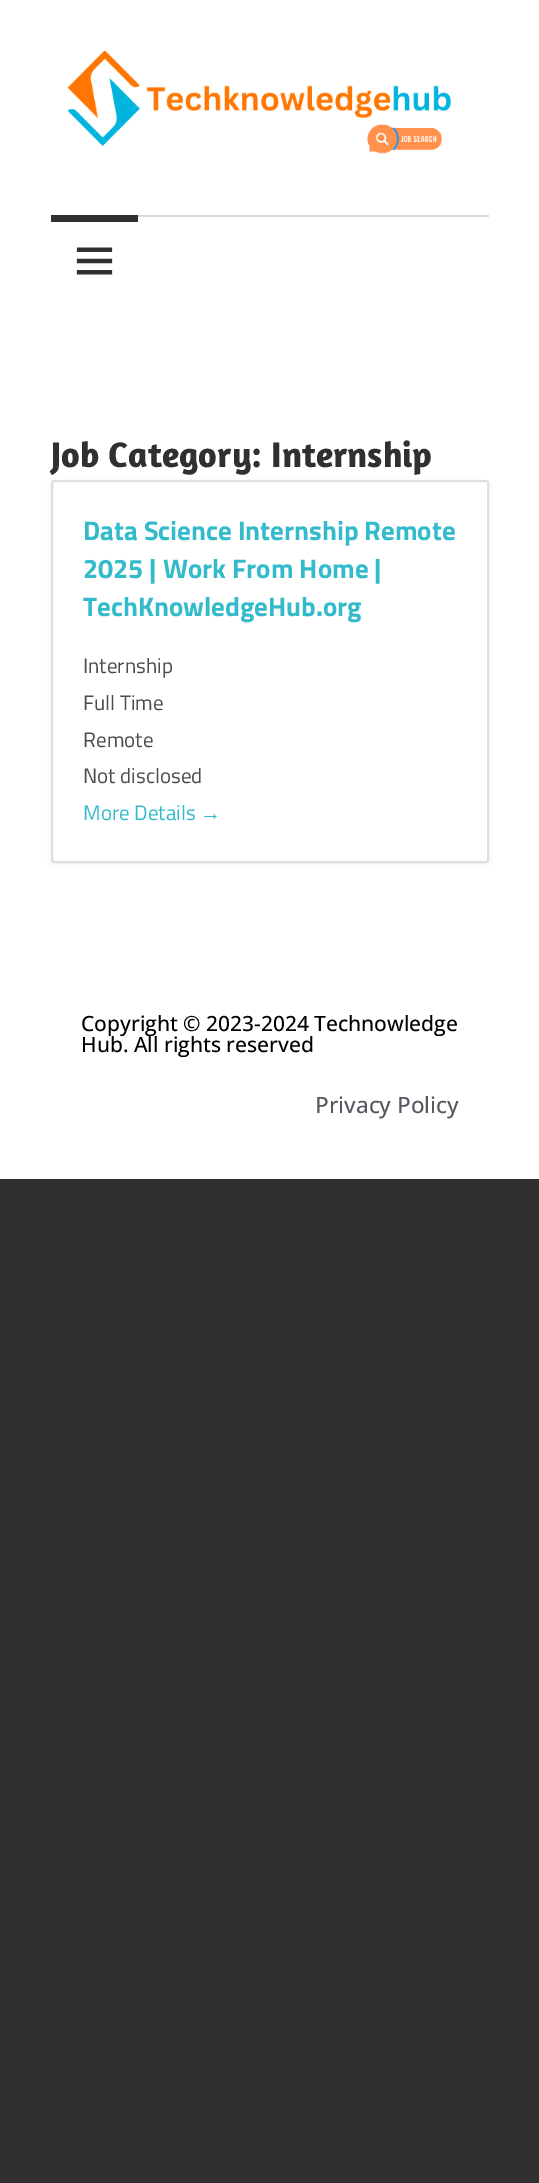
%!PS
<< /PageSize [539 2183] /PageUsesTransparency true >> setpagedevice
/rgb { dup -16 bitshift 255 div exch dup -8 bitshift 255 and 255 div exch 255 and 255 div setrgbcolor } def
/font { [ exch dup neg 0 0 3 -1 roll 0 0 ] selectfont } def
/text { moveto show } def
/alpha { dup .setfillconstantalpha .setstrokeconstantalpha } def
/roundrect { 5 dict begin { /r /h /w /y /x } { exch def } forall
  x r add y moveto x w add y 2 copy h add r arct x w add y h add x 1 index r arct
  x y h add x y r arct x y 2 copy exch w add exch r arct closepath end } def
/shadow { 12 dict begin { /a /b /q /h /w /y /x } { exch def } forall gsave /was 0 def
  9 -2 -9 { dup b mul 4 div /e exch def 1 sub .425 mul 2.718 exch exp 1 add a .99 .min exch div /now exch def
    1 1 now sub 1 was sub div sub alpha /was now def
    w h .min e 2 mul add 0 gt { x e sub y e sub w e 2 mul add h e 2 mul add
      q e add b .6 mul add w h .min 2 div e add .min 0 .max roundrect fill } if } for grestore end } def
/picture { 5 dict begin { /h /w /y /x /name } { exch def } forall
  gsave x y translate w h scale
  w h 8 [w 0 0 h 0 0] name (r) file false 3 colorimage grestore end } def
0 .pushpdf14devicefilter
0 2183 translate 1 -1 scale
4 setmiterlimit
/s1 { /Amaranth-Bold 36 font 16#303030 rgb } def
/s2 { /TitilliumWeb-Bold 27 font 16#33BBCC rgb } def
/s3 { /TitilliumWeb-Regular 21 font 16#4C4C4C rgb } def
/s4 { /TitilliumWeb-Regular 21 font 16#33BBCC rgb } def
/s5 { /LiberationSans-Regular 21 font 16#33BBCC rgb } def
/s6 { /OpenSans-Medium 21 font 16#000000 rgb } def
/s7 { /OpenSans-Medium 22.5 font 16#54595F rgb } def
16#303030 rgb
0 0 539 2183 rectfill
16#FFFFFF rgb
0 0 539 1179 rectfill
(pic1.raw) 67 51 385 103 picture
16#D9D9D9 rgb
138 215 351 2 rectfill
16#303030 rgb
51 215 87 7 rectfill
(pic2.raw) 76 247 37 28 picture
s1
(Job Category: Internship) 51 467 text
16#000000 rgb
51 482 438 382 3 3 0.05 shadow
16#FFFFFF rgb
52 481 436 381 2 roundrect gsave fill grestore
16#DDDFE3 rgb
2 setlinewidth
stroke
s2
(Data Science Internship Remote) 83 540 text
(2025 | Work From Home |) 83 578 text
(TechKnowledgeHub.org) 83 616 text
s3
(Internship) 83 673 text
(Full Time) 83 710 text
(Remote) 83 747 text
(Not disclosed) 83 783 text
s4
(More Details) 83 820 text
s5
(→) 200 820 text
s6
(Copyright © 2023-2024 Technowledge) 81 1031 text
(Hub. All rights reserved) 81 1052 text
s7
(Privacy Policy) 315 1113 text
.poppdf14devicefilter showpage
